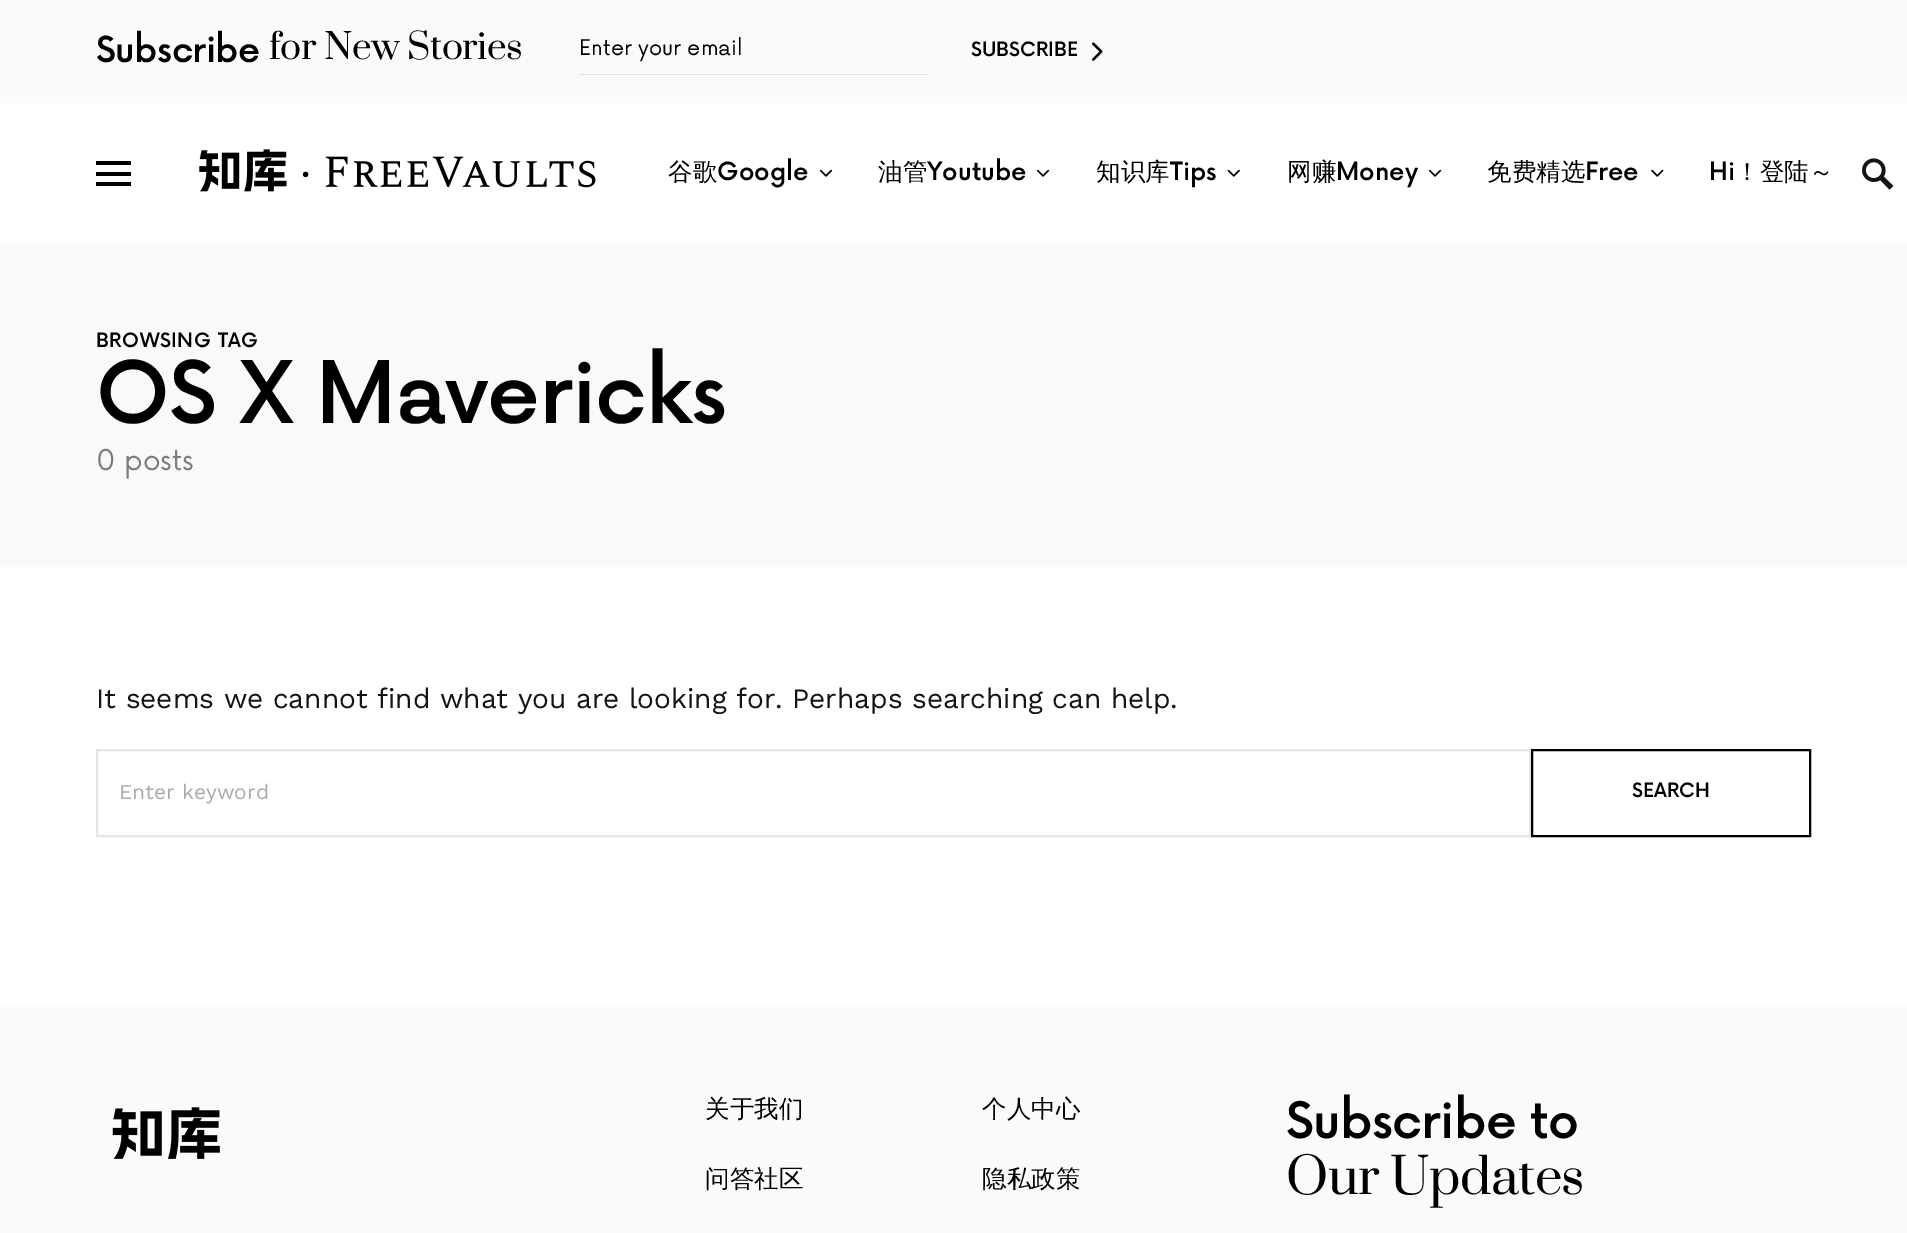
%!PS
<< /PageSize [1907 1233] >> setpagedevice
/rgb { dup -16 bitshift 255 div exch dup -8 bitshift 255 and 255 div exch 255 and 255 div setrgbcolor } def
/font { [ exch dup neg 0 0 3 -1 roll 0 0 ] selectfont } def
/text { moveto show } def
/picture { 5 dict begin { /h /w /y /x /name } { exch def } forall
  gsave x y translate w h scale
  w h 8 [w 0 0 h 0 0] name (r) file false 3 colorimage grestore end } def
0 1233 translate 1 -1 scale
4 setmiterlimit
/s1 { /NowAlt-Regular 21 font 16#000000 rgb } def
/s2 { /NowAlt-Medium 19.25 font 16#000000 rgb } def
/s3 { /WenQuanYiZenHei-Medium 24.5 font 16#000000 rgb } def
/s4 { /NowAlt-Medium 24.5 font 16#000000 rgb } def
/s5 { /NowAlt-Regular 28 font 16#7C7D7D rgb } def
/s6 { /WorkSans-Regular 28 font 16#121416 rgb } def
/s7 { /WorkSans-Regular 21 font 16#A8AAB2 rgb } def
16#FFFFFF rgb
0 0 1907 1233 rectfill
16#FAFAFA rgb
0 0 1907 103 rectfill
/NowAlt-Medium 35 font
16#000000 rgb
96 62 moveto -0.5 0 (Subscribe) ashow
/Prata-Regular 35 font
269 59 moveto -0.5 0 (for New Stories) ashow
16#DEE2E6 rgb
579 74 350 1 rectfill
gsave
579 37 350 26 rectclip
s1
(Enter your email) 579 55 text
grestore
s2
(SUBSCRIBE) 971 56 text
(pic1.raw) 1092 42 11 19 picture
96 161 35 4 rectfill
96 172 35 4 rectfill
96 182 35 4 rectfill
(pic2.raw) 199 149 397 43 picture
s3
(谷歌) 668 180 text
s4
(Google) 717 180 text
(pic3.raw) 819 169 14 8 picture
s3
(油管) 878 180 text
s4
(Youtube) 927 180 text
(pic3.raw) 1036 169 14 8 picture
s3
(知识库) 1096 180 text
s4
(Tips) 1170 180 text
(pic4.raw) 1227 169 13 8 picture
s3
(网赚) 1287 180 text
s4
(Money) 1336 180 text
(pic3.raw) 1428 169 14 8 picture
s3
(免费精选) 1487 180 text
s4
(Free) 1585 180 text
(pic5.raw) 1651 169 13 8 picture
(Hi) 1709 180 text
s3
(！登陆～) 1735 180 text
(pic6.raw) 1862 158 32 32 picture
16#F8F9FA rgb
0 243 1907 324 rectfill
/NowAlt-Medium 19.25 font
16#000000 rgb
96 347 moveto 0.5 0 (BROWSING TAG) ashow
/NowAlt-Medium 84 font
96 423 moveto -1 0 (OS X Mavericks) ashow
s5
(0 posts) 96 470 text
s6
(It seems we cannot find what you are looking for. Perhaps searching can help.) 96 708 text
16#E3E5E7 rgb
2 setlinewidth
97 750 1433 86 rectstroke
s7
(Enter keyword) 119 799 text
16#000000 rgb
1532 750 278 86 rectstroke
s2
(SEARCH) 1632 797 text
16#FAFAFA rgb
0 1005 1907 228 rectfill
(pic7.raw) 112 1107 108 52 picture
s3
(关于我们) 705 1117 text
(个人中心) 982 1117 text
(问答社区) 705 1187 text
(隐私政策) 982 1187 text
/NowAlt-Medium 49 font
1286 1138 moveto -0.6 0 (Subscribe to) ashow
/Prata-Regular 49 font
1286 1194 moveto -0.6 0 (Our Updates) ashow
showpage
